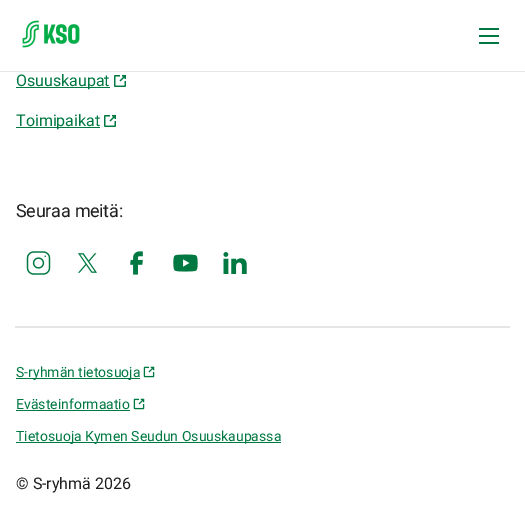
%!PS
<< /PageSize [525 524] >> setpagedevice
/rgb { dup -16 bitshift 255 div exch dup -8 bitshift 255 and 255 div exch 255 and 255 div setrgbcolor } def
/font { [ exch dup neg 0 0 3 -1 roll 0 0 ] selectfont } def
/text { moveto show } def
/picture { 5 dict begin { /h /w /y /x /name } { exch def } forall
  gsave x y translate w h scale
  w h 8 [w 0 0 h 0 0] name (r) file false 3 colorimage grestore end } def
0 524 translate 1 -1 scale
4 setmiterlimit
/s1 { /Roboto-Regular 16 font 16#007841 rgb } def
/s2 { /Roboto-Regular 14 font 16#007841 rgb } def
/s3 { /Roboto-Regular 16 font 16#1F1F1F rgb } def
16#FFFFFF rgb
0 0 525 524 rectfill
16#E6E6E6 rgb
0 71 525 1 rectfill
(pic1.raw) 22 20 58 28 picture
16#007841 rgb
479 35 20 2 rectfill
479 28 20 2 rectfill
479 42 20 2 rectfill
16 87 94 1 rectfill
s1
(Osuuskaupat) 16 86 text
(pic2.raw) 114 75 12 12 picture
16 127 84 1 rectfill
(Toimipaikat) 16 126 text
(pic2.raw) 104 115 12 12 picture
/Roboto-Regular 18 font
16#1F1F1F rgb
16 217 moveto -0.25 0 (Seuraa meitä:) ashow
(pic3.raw) 26 251 25 24 picture
(pic4.raw) 78 253 19 20 picture
(pic5.raw) 130 251 13 24 picture
(pic6.raw) 173 254 25 18 picture
(pic7.raw) 223 252 24 22 picture
16#E6E6E6 rgb
15 326 495 2 rectfill
16#007841 rgb
16 378 124 1 rectfill
s2
(S-ryhmän tietosuoja) 16 377 text
(pic8.raw) 143 366 12 12 picture
(Evästeinformaatio) 16 409 text
16 410 114 1 rectfill
(pic8.raw) 133 398 12 12 picture
16 442 265 1 rectfill
(Tietosuoja Kymen Seudun Osuuskaupassa) 16 441 text
s3
(© S-ryhmä 2026) 16 489 text
showpage
